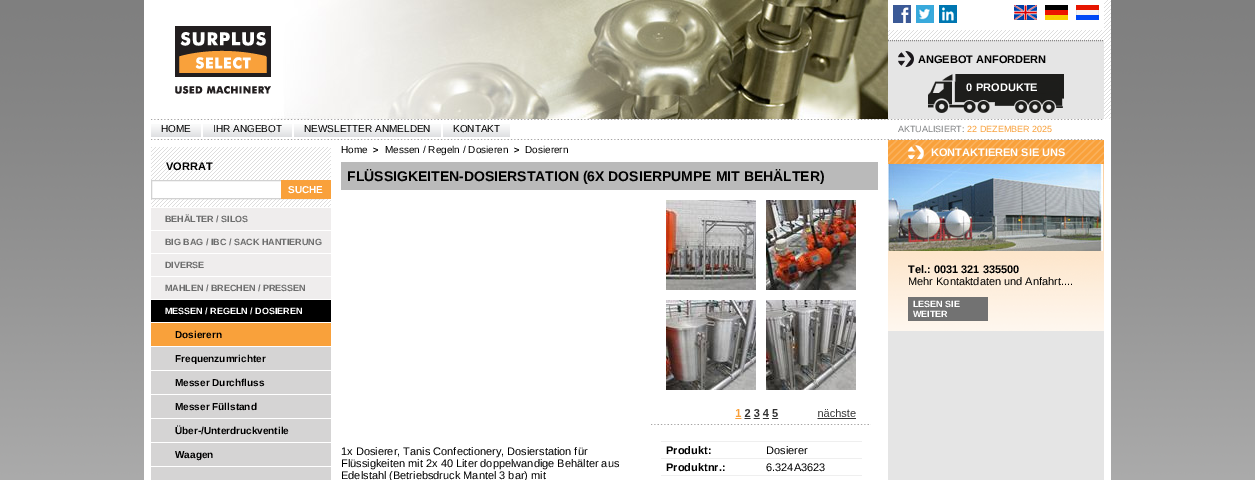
%!PS
<< /PageSize [1255 480] >> setpagedevice
/rgb { dup -16 bitshift 255 div exch dup -8 bitshift 255 and 255 div exch 255 and 255 div setrgbcolor } def
/font { [ exch dup neg 0 0 3 -1 roll 0 0 ] selectfont } def
/text { moveto show } def
/picture { 5 dict begin { /h /w /y /x /name } { exch def } forall
  gsave x y translate w h scale
  w h 8 [w 0 0 h 0 0] name (r) file false 3 colorimage grestore end } def
0 480 translate 1 -1 scale
4 setmiterlimit
/s1 { /LiberationSans-Bold 11 font 16#000000 rgb } def
/s2 { /LiberationSans-Bold 11 font 16#FFFFFF rgb } def
/s3 { /LiberationSans-Regular 10 font 16#000000 rgb } def
/s4 { /LiberationSans-Regular 9 font 16#808284 rgb } def
/s5 { /LiberationSans-Regular 9 font 16#F9A13B rgb } def
/s6 { /LiberationSans-Bold 10 font 16#FFFFFF rgb } def
/s7 { /LiberationSans-Bold 9 font 16#6E6E6E rgb } def
/s8 { /LiberationSans-Bold 9 font 16#FFFFFF rgb } def
/s9 { /LiberationSans-Bold 10 font 16#000000 rgb } def
/s10 { /LiberationSans-Bold 9 font 16#000000 rgb } def
/s11 { /LiberationSans-Bold 14 font 16#000000 rgb } def
/s12 { /LiberationSans-Regular 11 font 16#000000 rgb } def
16#FFFFFF rgb
0 0 1255 480 rectfill
(pic1.raw) 0 0 1255 480 picture
144 0 967 480 rectfill
(pic2.raw) 151 140 953 340 picture
(pic3.raw) 272 0 616 119 picture
(pic4.raw) 175 26 96 68 picture
(pic5.raw) 888 0 223 119 picture
888 0 216 30 rectfill
(pic6.raw) 893 5 18 18 picture
(pic7.raw) 916 5 18 18 picture
(pic8.raw) 939 5 18 18 picture
(pic9.raw) 1014 5 23 15 picture
(pic10.raw) 1045 5 23 15 picture
(pic11.raw) 1076 5 23 15 picture
16#E5E5E5 rgb
888 40 216 79 rectfill
16#898787 rgb
[1 1] 0 setdash
888 40.5 moveto 1104 40.5 lineto stroke
(pic12.raw) 898 51 16 16 picture
s1
(ANGEBOT ANFORDERN) 918 63 text
(pic13.raw) 928 74 136 39 picture
s2
(0) 966 91 text
(PRODUKTE) 976 91 text
(pic14.raw) 151 119 952 1 picture
(pic15.raw) 151 124 50 13 picture
s3
(HOME) 161 132 text
(pic16.raw) 203 124 89 13 picture
(IHR ANGEBOT) 213 132 text
(pic17.raw) 294 124 147 13 picture
(NEWSLETTER ANMELDEN) 304 132 text
(pic18.raw) 443 124 67 13 picture
(KONTAKT) 453 132 text
s4
(AKTUALISIERT:) 898 132 text
s5
(22 DEZEMBER 2025) 967 132 text
(pic19.raw) 151 139 953 1 picture
16#FFFFFF rgb
151 140 180 7 rectfill
s1
(VORRAT) 166 170 text
16#FFFFFF rgb
152 181 129 17 rectfill
16#D1D1D1 rgb
[] 0 setdash
151.5 180.5 173 18 rectstroke
16#F9A13B rgb
281 180 50 19 rectfill
s6
(SUCHE) 288 193 text
151 207 180 1 rectfill
16#EFEDED rgb
151 208 180 22 rectfill
s7
(BEHÄLTER / SILOS) 165 222 text
16#FFFFFF rgb
151 230 180 1 rectfill
16#EFEDED rgb
151 231 180 22 rectfill
s7
(BIG BAG / IBC / SACK HANTIERUNG) 165 245 text
16#FFFFFF rgb
151 253 180 1 rectfill
16#EFEDED rgb
151 254 180 22 rectfill
s7
(DIVERSE) 165 268 text
16#FFFFFF rgb
151 276 180 1 rectfill
16#EFEDED rgb
151 277 180 22 rectfill
s7
(MAHLEN / BRECHEN / PRESSEN) 165 291 text
16#FFFFFF rgb
151 299 180 1 rectfill
16#000000 rgb
151 300 180 22 rectfill
s8
(MESSEN / REGELN / DOSIEREN) 165 314 text
151 322 180 1 rectfill
16#F9A13B rgb
151 323 180 23 rectfill
s9
(Dosierern) 175 338 text
16#FFFFFF rgb
151 346 180 1 rectfill
16#D5D4D4 rgb
151 347 180 23 rectfill
s9
(Frequenzumrichter) 175 362 text
16#FFFFFF rgb
151 370 180 1 rectfill
16#D5D4D4 rgb
151 371 180 23 rectfill
s9
(Messer Durchfluss) 175 386 text
16#FFFFFF rgb
151 394 180 1 rectfill
16#D5D4D4 rgb
151 395 180 23 rectfill
s9
(Messer Füllstand) 175 410 text
16#FFFFFF rgb
151 418 180 1 rectfill
16#D5D4D4 rgb
151 419 180 23 rectfill
s9
(Über-/Unterdruckventile) 175 434 text
16#FFFFFF rgb
151 442 180 1 rectfill
16#D5D4D4 rgb
151 443 180 23 rectfill
s9
(Waagen) 175 458 text
16#FFFFFF rgb
151 466 180 1 rectfill
16#D5D4D4 rgb
151 467 180 13 rectfill
s3
(Home) 341 153 text
s10
(>) 373 153 text
s3
(Messen / Regeln / Dosieren) 385 153 text
s10
(>) 514 153 text
s3
(Dosierern) 525 153 text
16#BABABA rgb
341 162 537 28 rectfill
s11
(FLÜSSIGKEITEN-DOSIERSTATION \(6X DOSIERPUMPE MIT BEHÄLTER\)) 347 181 text
(pic20.raw) 651 424 220 1 picture
(pic21.raw) 666 200 190 219 picture
s12
(1x Dosierer, Tanis Confectionery, Dosierstation für) 341 455 text
(Flüssigkeiten mit 2x 40 Liter doppelwandige Behälter aus) 341 467 text
(Edelstahl \(Betriebsdruck Mantel 3 bar\) mit) 341 479 text
16#EFEFEF rgb
661 441 201 1 rectfill
s1
(Produkt:) 666 454 text
16#EFEFEF rgb
661 458 201 1 rectfill
s12
(Dosierer) 766 454 text
s1
(Produktnr.:) 666 471 text
16#EFEFEF rgb
661 475 201 1 rectfill
s12
(6.324A3623) 766 471 text
(pic22.raw) 888 164 216 167 picture
(pic23.raw) 888 140 216 24 picture
(pic24.raw) 908 145 16 14 picture
s2
(KONTAKTIEREN SIE UNS) 931 156 text
(pic25.raw) 888 164 215 87 picture
s1
(Tel.: 0031 321 335500) 908 273 text
s12
(Mehr Kontaktdaten und Anfahrt....) 908 285 text
16#727272 rgb
908 297 80 24 rectfill
s8
(LESEN SIE) 913 307 text
(WEITER) 913 317 text
showpage
